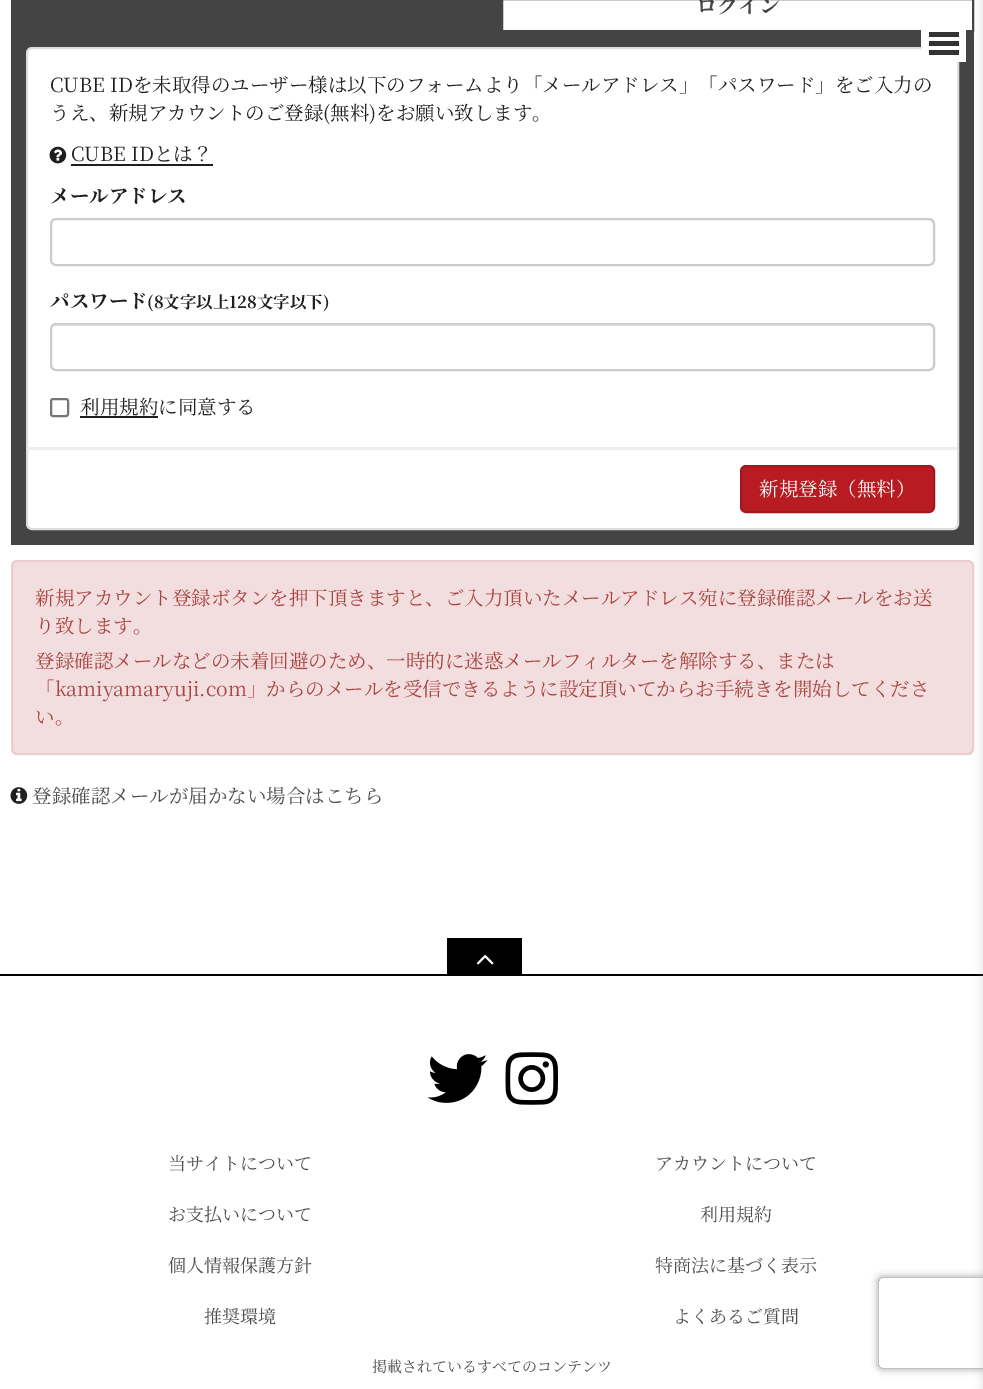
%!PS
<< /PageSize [983 1389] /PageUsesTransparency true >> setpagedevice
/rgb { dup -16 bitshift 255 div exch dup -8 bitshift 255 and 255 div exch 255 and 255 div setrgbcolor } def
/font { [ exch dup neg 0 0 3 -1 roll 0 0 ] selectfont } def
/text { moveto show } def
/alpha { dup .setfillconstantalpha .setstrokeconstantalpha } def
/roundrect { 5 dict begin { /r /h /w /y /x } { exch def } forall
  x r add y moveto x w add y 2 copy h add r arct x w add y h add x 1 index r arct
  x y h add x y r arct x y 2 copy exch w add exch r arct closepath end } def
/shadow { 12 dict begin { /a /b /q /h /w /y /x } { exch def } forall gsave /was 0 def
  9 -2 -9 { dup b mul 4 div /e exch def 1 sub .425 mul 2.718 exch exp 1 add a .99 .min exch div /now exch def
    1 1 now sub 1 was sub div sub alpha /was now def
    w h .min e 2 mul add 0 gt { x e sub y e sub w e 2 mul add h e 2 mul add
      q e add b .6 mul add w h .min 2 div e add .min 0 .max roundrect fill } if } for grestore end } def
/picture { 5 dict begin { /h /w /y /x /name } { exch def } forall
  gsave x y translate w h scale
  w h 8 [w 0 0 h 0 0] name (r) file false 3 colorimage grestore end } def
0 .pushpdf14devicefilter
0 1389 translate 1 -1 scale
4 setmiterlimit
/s1 { /NotoSerifJP-Bold 21 font 16#444444 rgb } def
/s2 { /NotoSerifJP-Regular 19.5 font 16#1F1F1F rgb } def
/s3 { /NotoSerifJP-Bold 19.5 font 16#1F1F1F rgb } def
/s4 { /NotoSerifJP-Bold 16.5 font 16#1F1F1F rgb } def
/s5 { /NotoSerifJP-Regular 19.5 font 16#FFFFFF rgb } def
/s6 { /NotoSerifJP-Regular 19.5 font 16#A94442 rgb } def
/s7 { /NotoSerifJP-Regular 19.5 font 16#4D4D4D rgb } def
/s8 { /NotoSerifJP-Regular 18 font 16#4D4D4D rgb } def
/s9 { /NotoSerifJP-Regular 15 font 16#4D4D4D rgb } def
16#FFFFFF rgb
0 0 983 1389 rectfill
16#444444 rgb
11 0 490 32 rectfill
2 setlinewidth
502 -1 471 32 rectstroke
s1
(ログイン) 696 13 text
11 32 963 513 rectfill
16#FFFFFF rgb
27 48 931 481 5 roundrect gsave fill grestore
16#DDDDDD rgb
stroke
s2
(CUBE IDを未取得のユーザー様は以下のフォームより「メールアドレス」「パスワード」をご入力の) 50 92 text
(うえ、新規アカウントのご登録\(無料\)をお願い致します。) 50 120 text
(pic1.raw) 49 146 18 18 picture
(CUBE IDとは？) 71 161 text
71 164 142 2 rectfill
s3
(メールアドレス) 50 203 text
16#ECECEC rgb
56 220 moveto 928 220 lineto 931 220 933 223 933 225 curveto 933 224 lineto 933 221 931 219 928 219 curveto 56 219 lineto 53 219 51 221 51 224 curveto 51 225 lineto 51 223 53 220 56 220 curveto closepath fill
16#CCCCCC rgb
51 219 883 46 5 roundrect stroke
s3
(パスワード) 50 308 text
s4
(\(8文字以上128文字以下\)) 147 308 text
16#ECECEC rgb
56 326 moveto 928 326 lineto 931 326 933 328 933 330 curveto 933 329 lineto 933 326 931 324 928 324 curveto 56 324 lineto 53 324 51 326 51 329 curveto 51 330 lineto 51 328 53 326 56 326 curveto closepath fill
16#CCCCCC rgb
51 324 883 46 5 roundrect stroke
16#767676 rgb
51 399 17 17 2 roundrect stroke
s2
(利用規約に同意する) 80 414 text
80 416 78 2 rectfill
16#EEEEEE rgb
27 447 930 3 rectfill
16#B81C22 rgb
741 466 193 46 5 roundrect gsave fill grestore
16#A2191E rgb
stroke
s5
(新規登録（無料）) 759 496 text
gsave
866 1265 moveto 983 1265 lineto 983 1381 lineto 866 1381 lineto closepath 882 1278 moveto 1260 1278 lineto 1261.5 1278 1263 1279.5 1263 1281 curveto 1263 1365 lineto 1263 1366.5 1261.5 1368 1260 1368 curveto 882 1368 lineto 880.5 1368 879 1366.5 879 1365 curveto 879 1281 lineto 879 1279.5 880.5 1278 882 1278 curveto closepath eoclip newpath
16#808080 rgb
879 1278 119 90 3 4 1 shadow
grestore
16#F2DEDE rgb
12 561 961 193 5 roundrect gsave fill grestore
16#EBCCD1 rgb
stroke
s6
(新規アカウント登録ボタンを押下頂きますと、ご入力頂いたメールアドレス宛に登録確認メールをお送) 35 605 text
(り致します。) 35 633 text
(登録確認メールなどの未着回避のため、一時的に迷惑メールフィルターを解除する、または) 35 668 text
(「kamiyamaryuji.com」からのメールを受信できるように設定頂いてからお手続きを開始してくださ) 35 696 text
(い。) 35 724 text
(pic2.raw) 10 787 18 17 picture
s7
(登録確認メールが届かない場合はこちら) 32 803 text
16#000000 rgb
0 974 983 2 rectfill
16#999999 rgb
981 -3 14 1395 0 4 0.2 shadow
16#FFFFFF rgb
921 30 45 32 rectfill
16#333333 rgb
929 41 30 5 rectfill
929 32 30 5 rectfill
929 50 30 5 rectfill
16#000000 rgb
447 938 75 36 rectfill
(pic3.raw) 476 954 18 11 picture
(pic4.raw) 427 1054 61 49 picture
(pic5.raw) 505 1052 53 53 picture
s8
(当サイトについて) 168 1170 text
(アカウントについて) 655 1170 text
(お支払いについて) 168 1221 text
(利用規約) 700 1221 text
(個人情報保護方針) 168 1272 text
(特商法に基づく表示) 655 1272 text
(推奨環境) 204 1323 text
(よくあるご質問) 673 1323 text
s9
(掲載されているすべてのコンテンツ) 372 1372 text
.poppdf14devicefilter showpage
